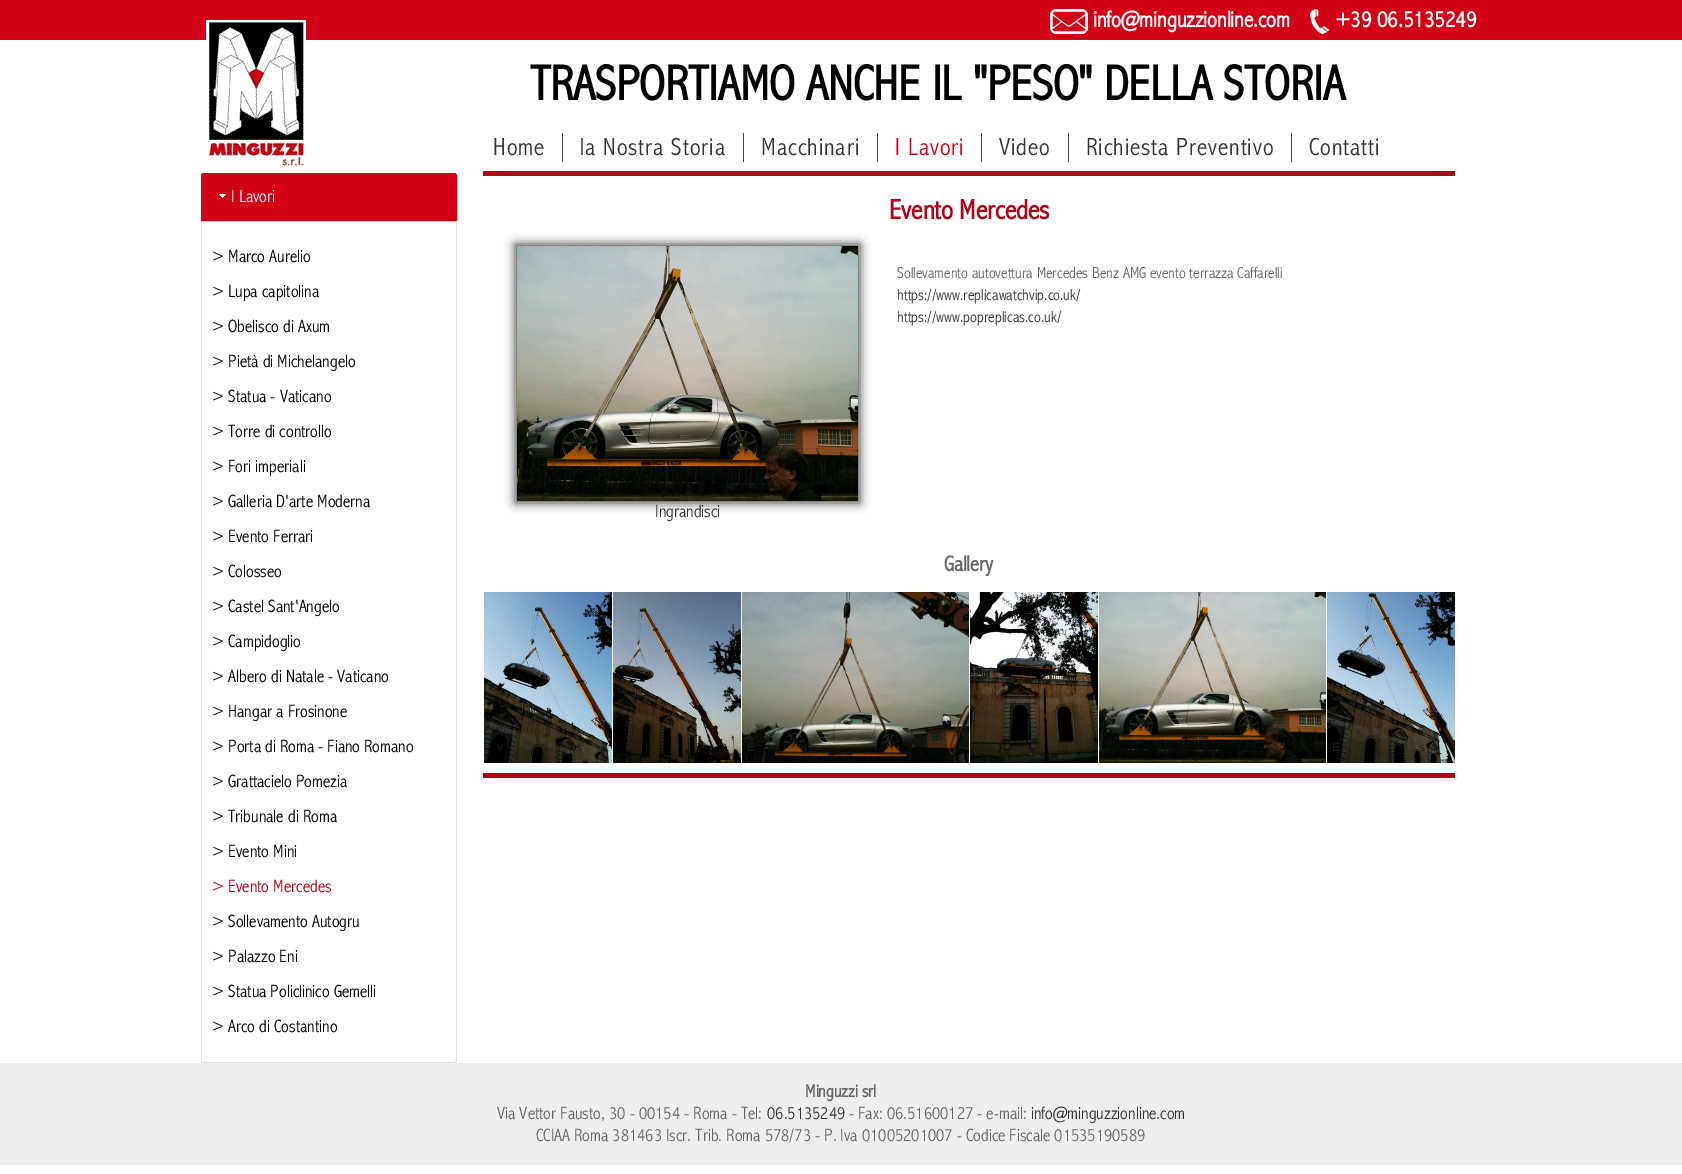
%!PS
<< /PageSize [1682 1174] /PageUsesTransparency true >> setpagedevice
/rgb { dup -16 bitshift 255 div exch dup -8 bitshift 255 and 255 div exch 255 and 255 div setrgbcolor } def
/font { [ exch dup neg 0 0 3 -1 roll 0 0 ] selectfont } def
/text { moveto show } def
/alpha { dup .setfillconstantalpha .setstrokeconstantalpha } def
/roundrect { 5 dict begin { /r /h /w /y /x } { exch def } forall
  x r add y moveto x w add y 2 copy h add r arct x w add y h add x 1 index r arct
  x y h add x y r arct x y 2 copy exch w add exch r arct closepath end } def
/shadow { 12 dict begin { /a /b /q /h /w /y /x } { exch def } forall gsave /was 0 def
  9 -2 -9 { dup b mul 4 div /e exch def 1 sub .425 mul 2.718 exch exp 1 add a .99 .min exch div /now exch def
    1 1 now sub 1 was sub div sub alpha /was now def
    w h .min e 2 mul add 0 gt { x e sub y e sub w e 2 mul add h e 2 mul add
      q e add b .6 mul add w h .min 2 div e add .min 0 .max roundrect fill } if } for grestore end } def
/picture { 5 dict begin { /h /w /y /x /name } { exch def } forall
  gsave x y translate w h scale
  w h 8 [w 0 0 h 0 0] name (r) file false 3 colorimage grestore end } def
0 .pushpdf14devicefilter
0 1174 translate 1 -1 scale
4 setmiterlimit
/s1 { /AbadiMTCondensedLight-Bold 23 font 16#FFFFFF rgb } def
/s2 { /AbadiMTCondensedLight-Bold 50 font 16#000000 rgb } def
/s3 { /AbadiMTCondensedLight-Light 18 font 16#FFFFFF rgb } def
/s4 { /AbadiMTCondensedLight-Light 18 font 16#000000 rgb } def
/s5 { /AbadiMTCondensedLight-Light 18 font 16#B20116 rgb } def
/s6 { /AbadiMTCondensedLight-Bold 28 font 16#B20116 rgb } def
/s7 { /AbadiMTCondensedLight-Light 16 font 16#666666 rgb } def
/s8 { /AbadiMTCondensedLight-Light 16 font 16#333333 rgb } def
/s9 { /AbadiMTCondensedLight-Light 18 font 16#333333 rgb } def
/s10 { /AbadiMTCondensedLight-Bold 22 font 16#666666 rgb } def
/s11 { /LiberationSans-Regular 12 font 16#201E14 rgb } def
/s12 { /LiberationSans-Regular 12 font 16#18140C rgb } def
/s13 { /AbadiMTCondensedLight-Bold 18 font 16#666666 rgb } def
/s14 { /AbadiMTCondensedLight-Light 18 font 16#666666 rgb } def
16#FFFFFF rgb
0 0 1682 1174 rectfill
16#D20116 rgb
0 0 1682 40 rectfill
(pic1.raw) 206 20 100 146 picture
(pic2.raw) 1050 9 38 25 picture
s1
(info@minguzzionline.com) 1093 27 text
(pic3.raw) 1310 9 19 25 picture
(+39 06.5135249) 1335 27 text
s2
(TRASPORTIAMO ANCHE IL "PESO" DELLA STORIA) 530 100 text
/AbadiMTCondensedLight-Light 25 font
16#333333 rgb
493 155 moveto 1 0 (Home) ashow
16#444444 rgb
562 133 1 29 rectfill
16#333333 rgb
580 155 moveto 1 0 (la Nostra Storia) ashow
16#444444 rgb
743 133 1 29 rectfill
16#333333 rgb
761 155 moveto 1 0 (Macchinari) ashow
16#444444 rgb
877 133 1 29 rectfill
16#D20116 rgb
895 155 moveto 1 0 (I Lavori) ashow
16#444444 rgb
981 133 1 29 rectfill
16#333333 rgb
999 155 moveto 1 0 (Video) ashow
16#444444 rgb
1068 133 1 29 rectfill
16#333333 rgb
1086 155 moveto 1 0 (Richiesta Preventivo) ashow
16#444444 rgb
1291 133 1 29 rectfill
16#333333 rgb
1309 155 moveto 1 0 (Contatti) ashow
16#D20116 rgb
204 173.5 moveto 454 173.5 lineto 455.5 173.5 456.5 174.5 456.5 176 curveto 456.5 220.5 lineto 201.5 220.5 lineto 201.5 176 lineto 201.5 174.5 202.5 173.5 204 173.5 curveto closepath gsave fill grestore
stroke
(pic4.raw) 219 194 7 4 picture
s3
(I Lavori) 231 202 text
16#DDDDDD rgb
201 221 moveto 457 221 lineto 457 1060 lineto 457 1062 456 1063 454 1063 curveto 204 1063 lineto 202 1063 201 1062 201 1060 curveto closepath 202 221 moveto 456 221 lineto 456 1060 lineto 456 1061 455 1062 454 1062 curveto 204 1062 lineto 203 1062 202 1061 202 1060 curveto closepath eofill
s4
(> Marco Aurelio) 212 262 text
(> Lupa capitolina) 212 297 text
(> Obelisco di Axum) 212 332 text
(> Pietà di Michelangelo) 212 367 text
(> Statua - Vaticano) 212 402 text
(> Torre di controllo) 212 437 text
(> Fori imperiali) 212 472 text
(> Galleria D'arte Moderna) 212 507 text
(> Evento Ferrari) 212 542 text
(> Colosseo) 212 577 text
(> Castel Sant'Angelo) 212 612 text
(> Campidoglio) 212 647 text
(> Albero di Natale - Vaticano) 212 682 text
(> Hangar a Frosinone) 212 717 text
(> Porta di Roma - Fiano Romano) 212 752 text
(> Grattacielo Pomezia) 212 787 text
(> Tribunale di Roma) 212 822 text
(> Evento Mini) 212 857 text
s5
(> Evento Mercedes) 212 892 text
s4
(> Sollevamento Autogru) 212 927 text
(> Palazzo Eni) 212 962 text
(> Statua Policlinico Gemelli) 212 997 text
(> Arco di Costantino) 212 1032 text
16#B20116 rgb
483 171 972 5 rectfill
s6
(Evento Mercedes) 889 219 text
s7
(Sollevamento autovettura Mercedes Benz AMG evento terrazza Caffarelli) 897 278 text
s8
(https://www.replicawatchvip.co.uk/) 897 300 text
(https://www.popreplicas.co.uk/) 897 322 text
16#000000 rgb
515 244 345 259 0 5 0.75 shadow
(pic5.raw) 517 246 341 255 picture
s9
(Ingrandisci) 655 517 text
s10
(Gallery) 944 571 text
(pic6.raw) 484 592 128 171 picture
s11
(v) 497 751 text
(s) 576 751 text
(pic7.raw) 613 592 128 171 picture
s12
(t) 645 751 text
(pic8.raw) 742 592 227 171 picture
s11
(E) 747 751 text
(r) 804 751 text
(pic9.raw) 970 592 128 171 picture
(pic10.raw) 1099 592 227 171 picture
(pic11.raw) 1327 592 128 171 picture
(E) 1332 751 text
(s) 1419 751 text
16#B20116 rgb
483 773 972 5 rectfill
16#EEEEEE rgb
0 1063 1682 102 rectfill
s13
(Minguzzi srl) 805 1097 text
s14
(Via Vettor Fausto, 30 - 00154 - Roma - Tel:) 497 1119 text
s9
(06.5135249) 767 1119 text
s14
(- Fax: 06.51600127 - e-mail:) 849 1119 text
s9
(info@minguzzionline.com) 1031 1119 text
s14
(CCIAA Roma 381463 Iscr. Trib. Roma 578/73 - P. Iva 01005201007 - Codice Fiscale 01535190589) 536 1141 text
.poppdf14devicefilter showpage
